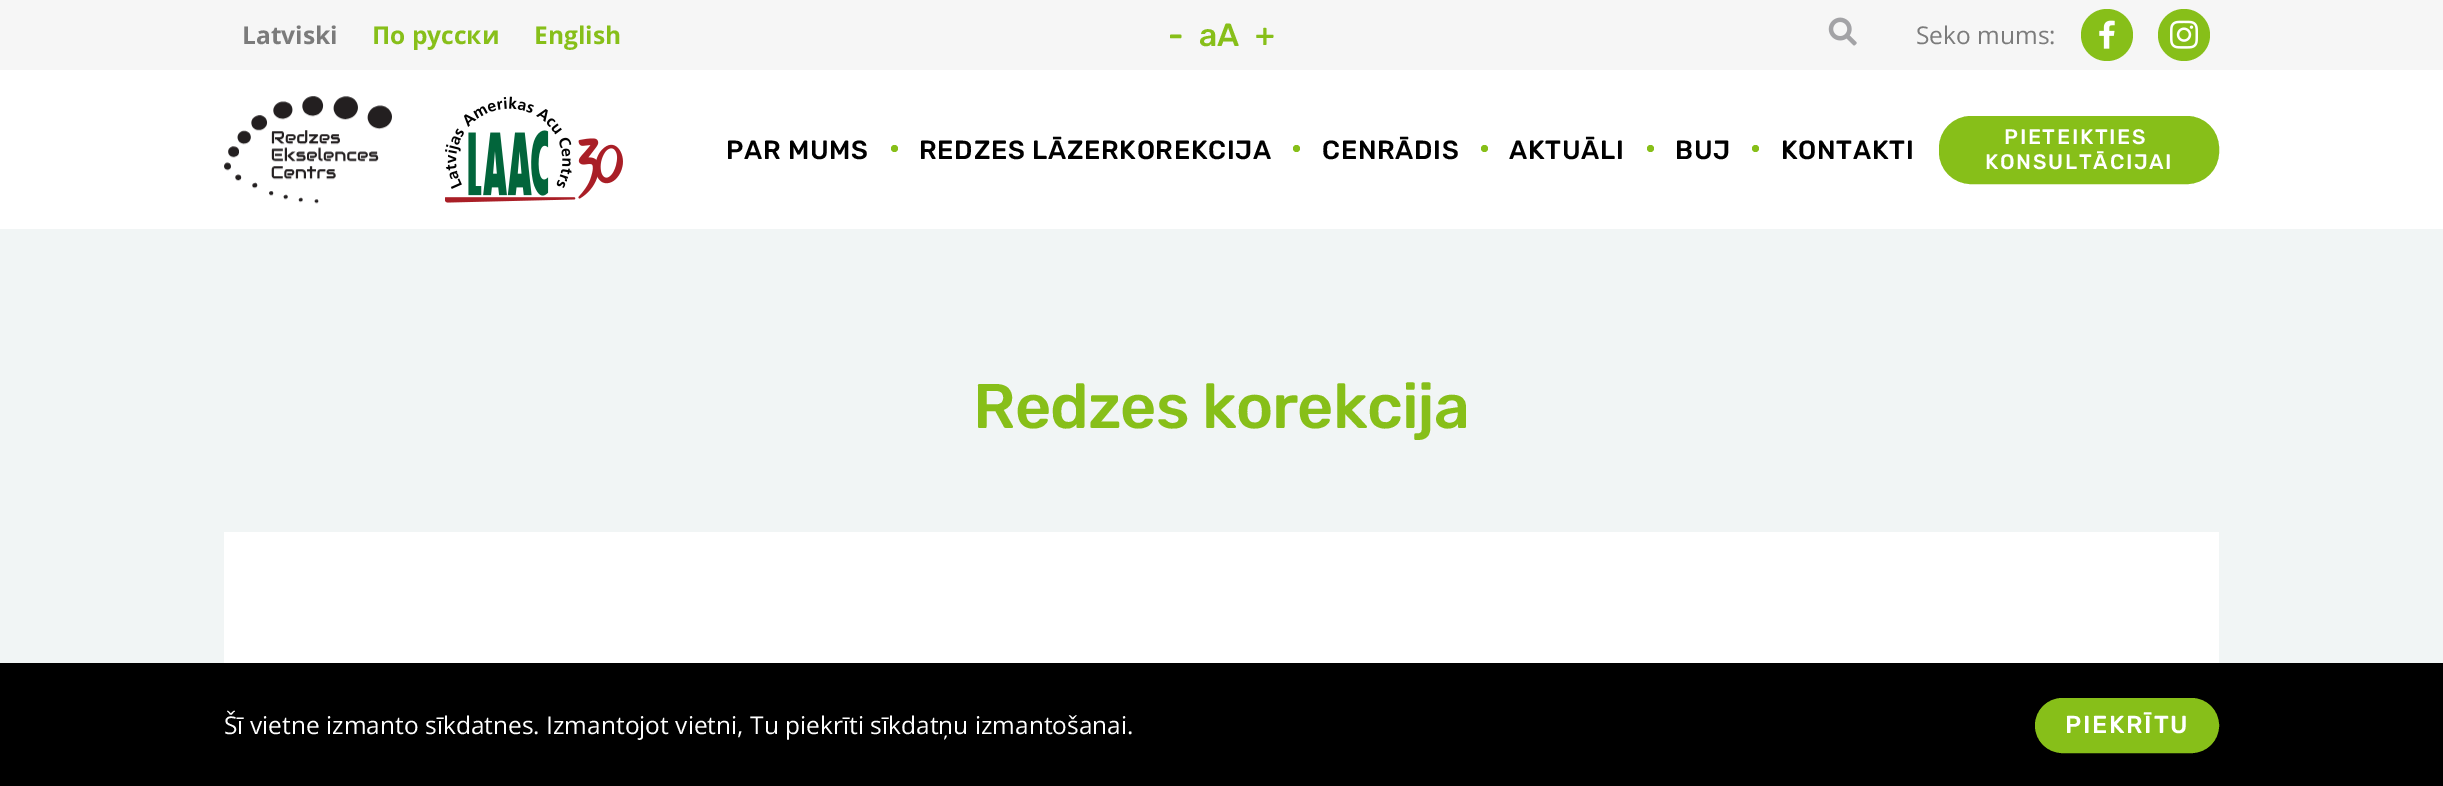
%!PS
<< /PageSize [2443 786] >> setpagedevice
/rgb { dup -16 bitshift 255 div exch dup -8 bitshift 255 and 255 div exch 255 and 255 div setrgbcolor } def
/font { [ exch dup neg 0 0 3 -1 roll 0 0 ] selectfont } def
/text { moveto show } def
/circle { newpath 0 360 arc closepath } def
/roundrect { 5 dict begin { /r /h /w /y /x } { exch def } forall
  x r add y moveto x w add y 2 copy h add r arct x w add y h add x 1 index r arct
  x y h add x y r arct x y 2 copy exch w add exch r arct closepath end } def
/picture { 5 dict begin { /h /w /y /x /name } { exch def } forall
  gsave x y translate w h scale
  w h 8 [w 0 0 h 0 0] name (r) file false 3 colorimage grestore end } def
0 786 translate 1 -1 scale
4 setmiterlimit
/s1 { /OpenSans-Bold 24.5 font 16#7B7B7B rgb } def
/s2 { /OpenSans-Bold 24.5 font 16#87BF19 rgb } def
/s3 { /Rubik-Medium 32 font 16#87BF19 rgb } def
/s4 { /OpenSans-Regular 24.5 font 16#7B7B7B rgb } def
/s5 { /OpenSans-Regular 24.5 font 16#FFFFFF rgb } def
16#FFFFFF rgb
0 0 2443 786 rectfill
16#F6F6F6 rgb
0 0 2443 70 rectfill
s1
(Latviski) 242 44 text
s2
(По русски) 372 44 text
(English) 534 44 text
s3
(-) 1168 46 text
(aA) 1199 46 text
(+) 1255 46 text
(pic1.raw) 1828 17 29 29 picture
s4
(Seko mums:) 1916 44 text
16#87BF19 rgb
2107 35 26 circle fill
(pic2.raw) 2099 20 16 29 picture
2184 35 26 circle fill
(pic3.raw) 2170 20 28 29 picture
(pic4.raw) 224 96 168 108 picture
(pic5.raw) 445 96 178 107 picture
/Rubik-Medium 26.25 font
16#000000 rgb
726 159 moveto 0.7 0 (PAR MUMS) ashow
16#87BF19 rgb
894.5 148.5 3.5 circle fill
16#000000 rgb
919 159 moveto 0.7 0 (REDZES LĀZERKOREKCIJA) ashow
16#87BF19 rgb
1296.5 148.5 3.5 circle fill
16#000000 rgb
1322 159 moveto 0.7 0 (CENRĀDIS) ashow
16#87BF19 rgb
1484.5 148.5 3.5 circle fill
16#000000 rgb
1509 159 moveto 0.7 0 (AKTUĀLI) ashow
16#87BF19 rgb
1650.5 148.5 3.5 circle fill
16#000000 rgb
1675 159 moveto 0.7 0 (BUJ) ashow
16#87BF19 rgb
1755.5 148.5 3.5 circle fill
16#000000 rgb
1781 159 moveto 0.7 0 (KONTAKTI) ashow
16#87BF19 rgb
1940 117 278 66 31 roundrect gsave fill grestore
2 setlinewidth
stroke
/Rubik-Medium 21 font
16#FFFFFF rgb
2004 144 moveto 1.75 0 (PIETEIKTIES) ashow
1985 169 moveto 1.75 0 (KONSULTĀCIJAI) ashow
16#F1F5F5 rgb
0 229 2443 434 rectfill
/Rubik-Medium 63 font
16#87BF19 rgb
973 428 moveto -0.9 0 (Redzes korekcija) ashow
16#FFFFFF rgb
224 532 1995 131 rectfill
16#000000 rgb
0 663 2443 123 rectfill
s5
(Šī vietne izmanto sīkdatnes. Izmantojot vietni, Tu piekrīti sīkdatņu izmantošanai.) 224 734 text
16#87BF19 rgb
2036 699 182 53 26.5 roundrect gsave fill grestore
stroke
/Rubik-Medium 24.5 font
16#FFFFFF rgb
2065 733 moveto 1.75 0 (PIEKRĪTU) ashow
showpage
